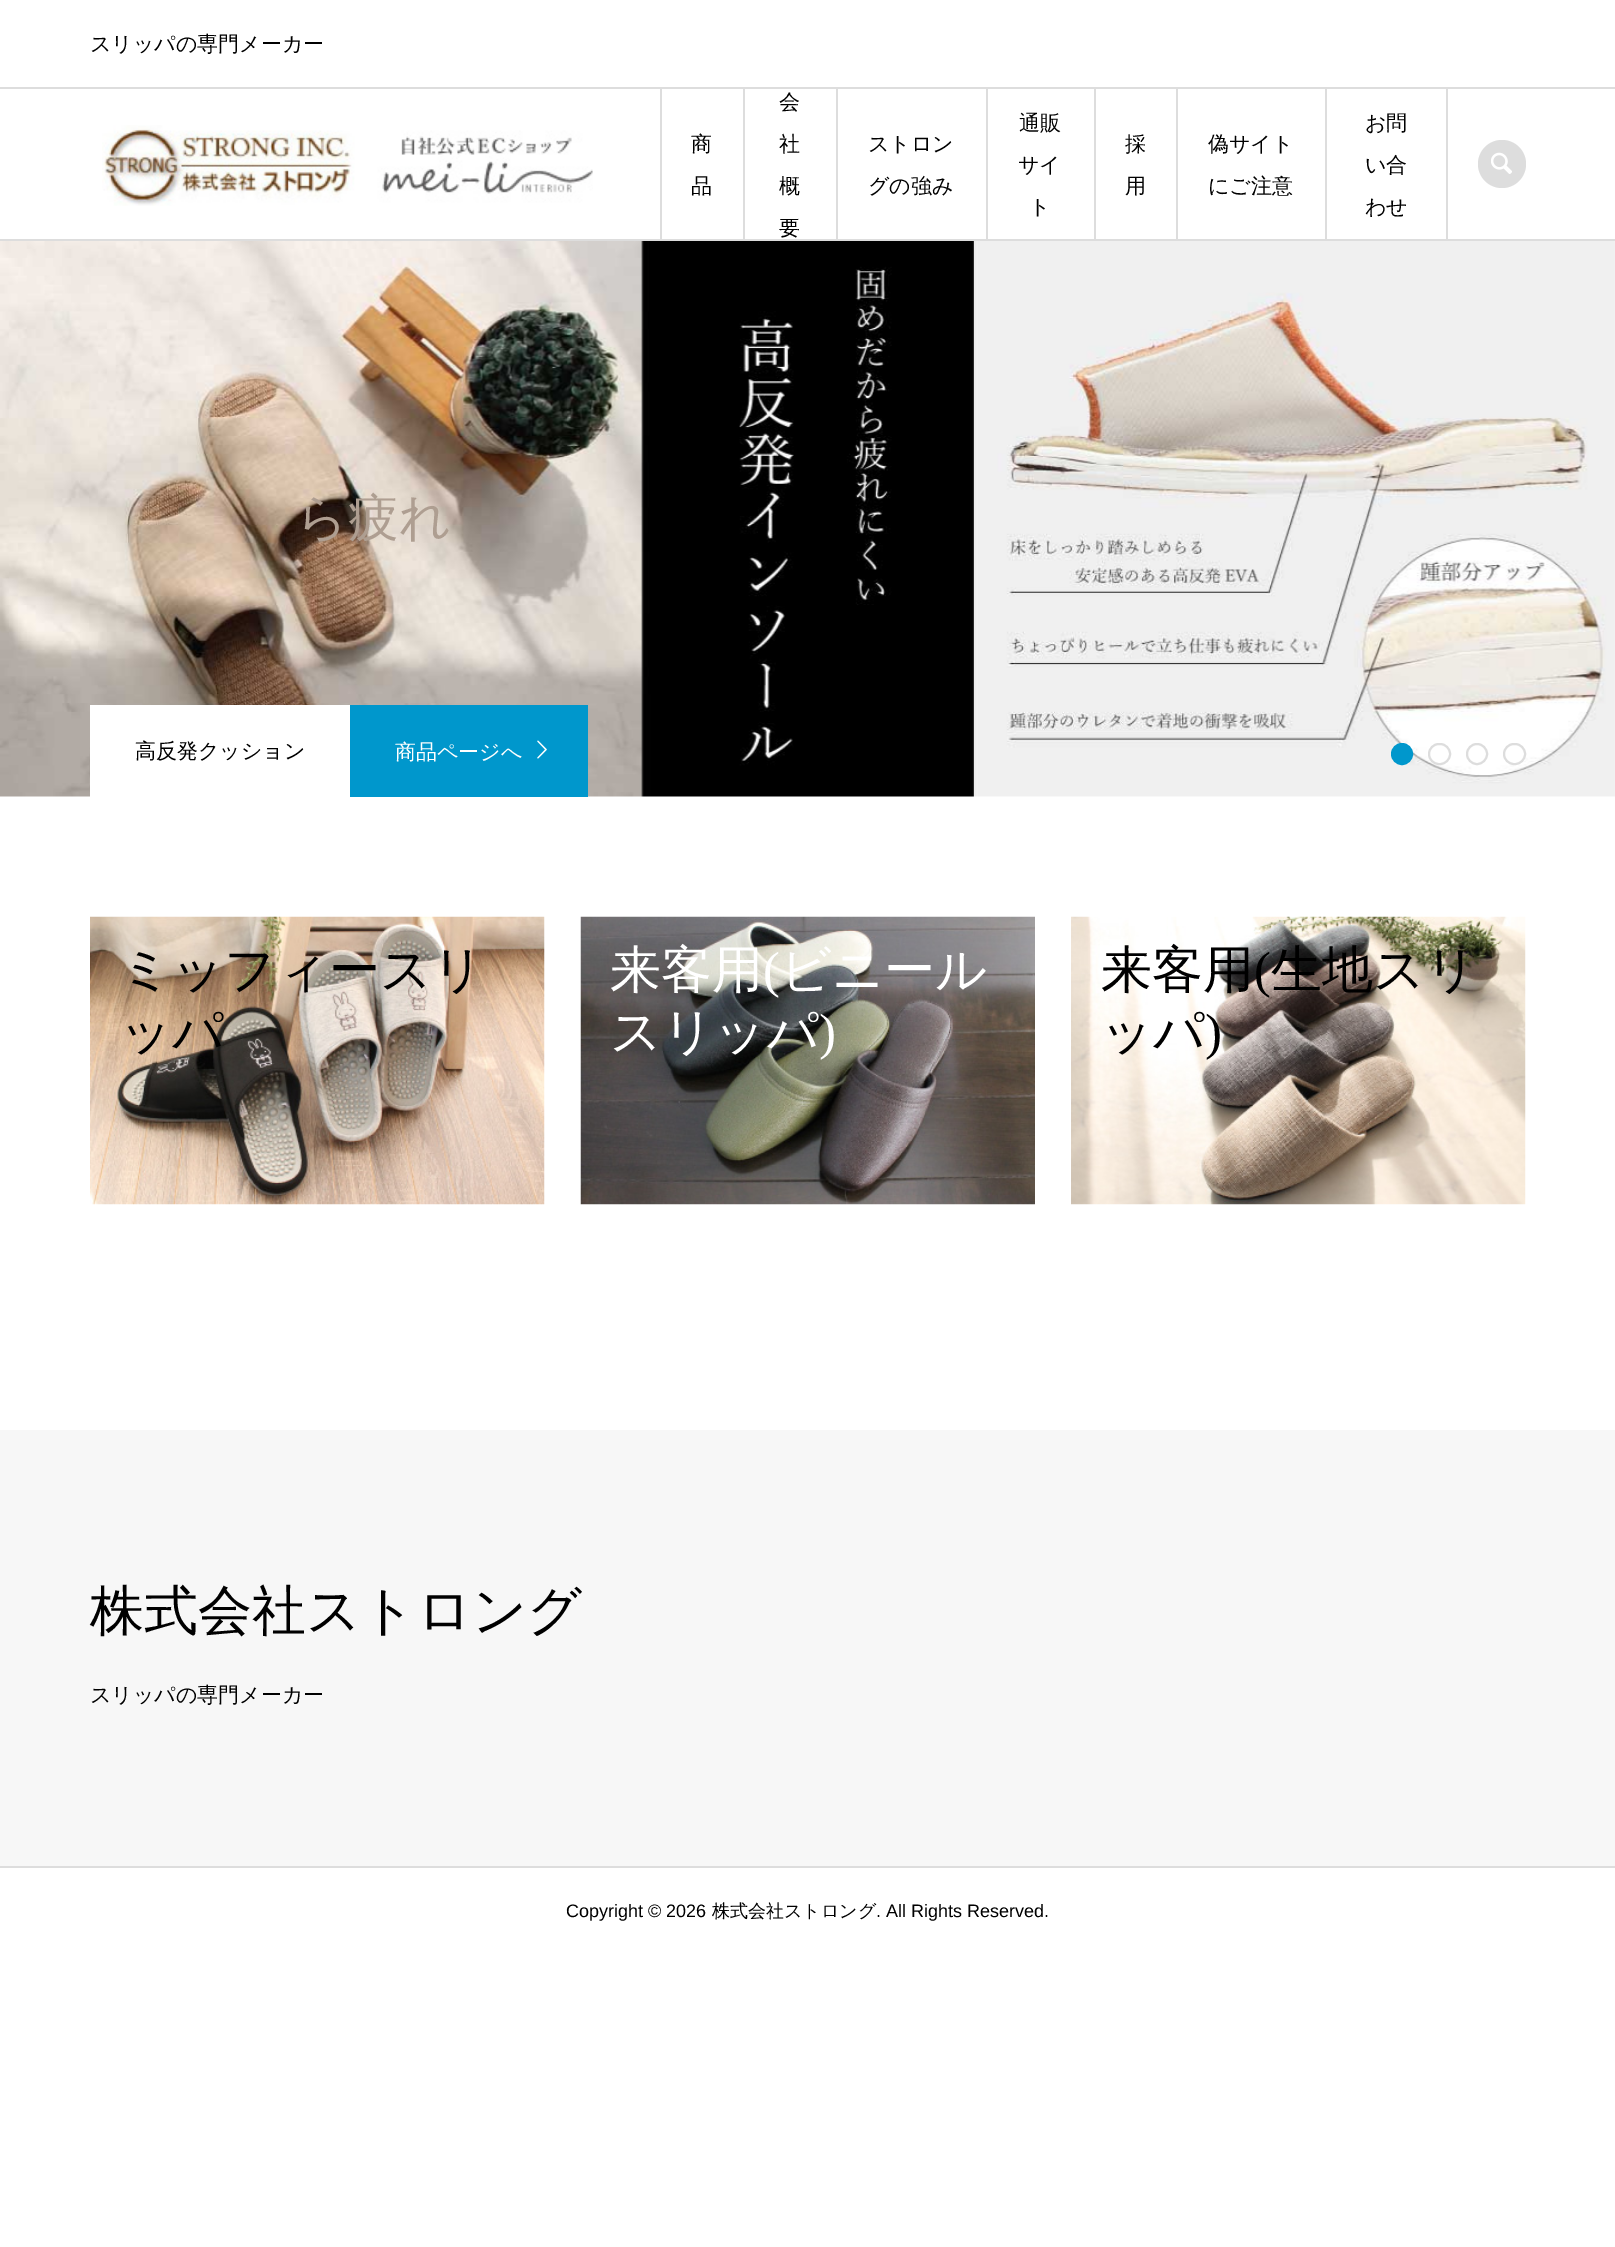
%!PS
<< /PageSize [1615 2247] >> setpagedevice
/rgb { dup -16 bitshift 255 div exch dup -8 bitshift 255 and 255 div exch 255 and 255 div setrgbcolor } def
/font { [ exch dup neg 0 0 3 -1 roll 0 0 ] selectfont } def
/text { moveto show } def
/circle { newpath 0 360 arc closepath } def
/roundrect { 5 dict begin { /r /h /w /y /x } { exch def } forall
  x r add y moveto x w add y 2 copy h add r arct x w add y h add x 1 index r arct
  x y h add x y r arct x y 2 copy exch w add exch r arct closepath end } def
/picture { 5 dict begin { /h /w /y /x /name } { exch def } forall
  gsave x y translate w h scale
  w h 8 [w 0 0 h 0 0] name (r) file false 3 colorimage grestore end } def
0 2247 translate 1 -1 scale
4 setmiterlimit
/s1 { /WenQuanYiZenHei-Medium 21 font 16#000000 rgb } def
/s2 { /WenQuanYiZenHei-Medium 51 font 16#AE9E91 rgb } def
/s3 { /WenQuanYiZenHei-Medium 21 font 16#FFFFFF rgb } def
/s4 { /WenQuanYiZenHei-Medium 51 font 16#000000 rgb } def
/s5 { /WenQuanYiZenHei-Medium 51 font 16#FFFFFF rgb } def
/s6 { /LiberationSerif-Regular 51 font 16#FFFFFF rgb } def
/s7 { /LiberationSerif-Regular 51 font 16#000000 rgb } def
/s8 { /WenQuanYiZenHei-Medium 54 font 16#000000 rgb } def
/s9 { /LiberationSans-Regular 18 font 16#000000 rgb } def
/s10 { /WenQuanYiZenHei-Medium 18 font 16#000000 rgb } def
16#FFFFFF rgb
0 0 1615 2247 rectfill
16#DDDDDD rgb
0 87 1615 2 rectfill
s1
(スリッパの専門メーカー) 90 51 text
16#DDDDDD rgb
0 239 1615 2 rectfill
(pic1.raw) 102 125 491 81 picture
660 89 2 150 rectfill
743 89 2 151 rectfill
s1
(商) 691 151 text
(品) 691 193 text
16#DDDDDD rgb
836 89 2 151 rectfill
s1
(会) 779 109 text
(社) 779 151 text
(概) 779 193 text
(要) 779 235 text
16#DDDDDD rgb
986 89 2 151 rectfill
s1
(ストロン) 868 151 text
(グの強み) 868 193 text
16#DDDDDD rgb
1094 89 2 151 rectfill
s1
(通販) 1019 130 text
(サイ) 1018 172 text
(ト) 1029 214 text
16#DDDDDD rgb
1176 89 2 151 rectfill
s1
(採) 1125 151 text
(用) 1125 193 text
16#DDDDDD rgb
1325 89 2 151 rectfill
s1
(偽サイト) 1208 151 text
(にご注意) 1208 193 text
16#DDDDDD rgb
1446 89 2 151 rectfill
s1
(お問) 1365 130 text
(い合) 1365 172 text
(わせ) 1365 214 text
16#DDDDDD rgb
1502 164 24 circle fill
(pic2.raw) 1491 152 21 22 picture
(pic3.raw) 0 241 1615 556 picture
s2
(ら疲れ) 296 535 text
16#FFFFFF rgb
90 705 260 92 rectfill
s1
(高反発クッション) 135 758 text
16#0097CC rgb
350 705 238 92 rectfill
s3
(商品ページへ) 395 759 text
(pic4.raw) 537 740 10 19 picture
16#0097CC rgb
1402 754 10 circle gsave fill grestore
2 setlinewidth
stroke
16#FFFFFF rgb
1429 744 21 20 10 roundrect gsave fill grestore
16#DDDDDD rgb
stroke
1477 754 10 circle stroke
1504 744 21 20 10 roundrect stroke
(pic5.raw) 90 916 455 289 picture
s4
(ミッフィースリ) 120 987 text
(ッパ) 120 1049 text
(pic6.raw) 580 916 455 289 picture
s5
(来客用) 610 987 text
s6
(\() 763 987 text
s5
(ビニール) 780 987 text
(スリッパ) 610 1049 text
s6
(\)) 819 1049 text
(pic7.raw) 1071 916 455 289 picture
s4
(来客用) 1101 987 text
s7
(\() 1254 987 text
s4
(生地スリ) 1271 987 text
(ッパ) 1101 1049 text
s7
(\)) 1205 1049 text
16#F7F7F7 rgb
0 1430 1615 436 rectfill
s8
(株式会社ストロング) 90 1629 text
s1
(スリッパの専門メーカー) 90 1702 text
16#DDDDDD rgb
0 1866 1615 2 rectfill
s9
(Copyright © 2026) 566 1917 text
s10
(株式会社ストロング) 712 1917 text
s9
(. All Rights Reserved.) 876 1917 text
showpage
